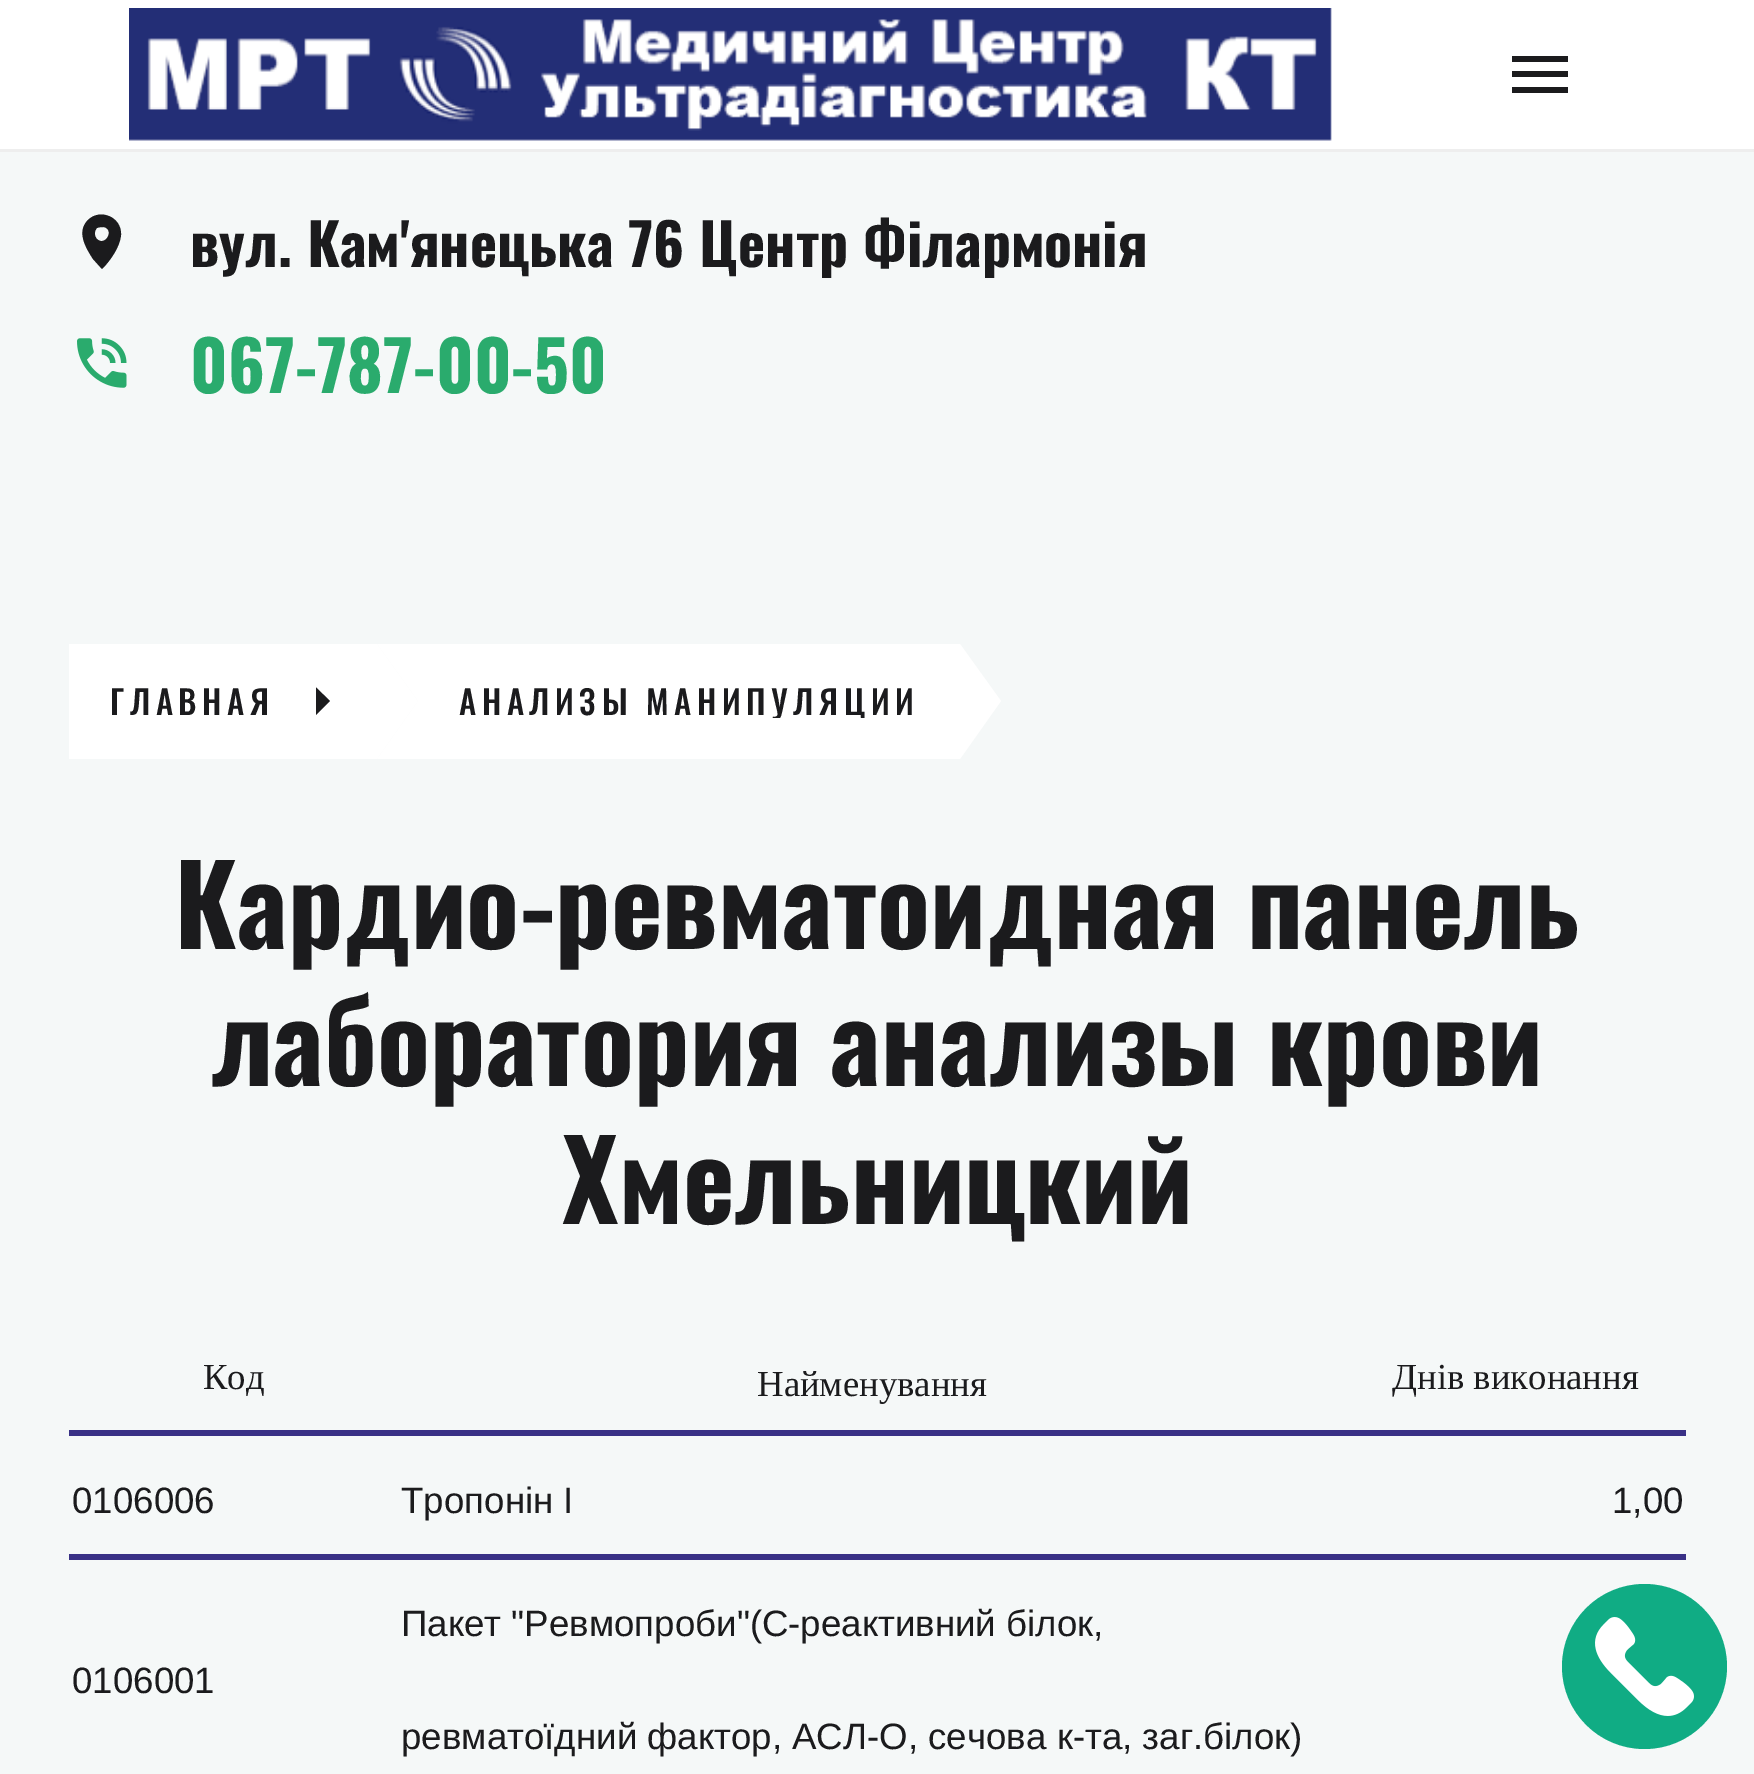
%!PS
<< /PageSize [1754 1774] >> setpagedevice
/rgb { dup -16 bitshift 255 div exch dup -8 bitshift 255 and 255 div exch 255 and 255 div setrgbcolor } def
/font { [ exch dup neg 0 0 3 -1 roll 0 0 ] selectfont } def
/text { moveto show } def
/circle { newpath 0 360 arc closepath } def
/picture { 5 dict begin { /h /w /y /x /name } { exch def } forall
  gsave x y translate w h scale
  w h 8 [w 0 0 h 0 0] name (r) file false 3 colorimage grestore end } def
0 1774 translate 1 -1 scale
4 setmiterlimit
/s1 { /Oswald-Bold 57.75 font 16#1B1B1D rgb } def
/s2 { /Oswald-Bold 68.75 font 16#2AAB6D rgb } def
/s3 { /Oswald-Bold 110 font 16#1B1B1D rgb } def
/s4 { /LiberationSerif-Regular 36.7 font 16#1B1B1D rgb } def
/s5 { /LiberationSans-Regular 36.7 font 16#1B1B1D rgb } def
16#F5F8F8 rgb
0 0 1754 1774 rectfill
16#FFFFFF rgb
0 0 1754 149 rectfill
16#EEEEEE rgb
0 149 1754 3 rectfill
(pic1.raw) 129 8 1203 133 picture
16#1B1B1D rgb
1512 93 moveto 1512 87 lineto 1568 87 lineto 1568 93 lineto closepath 1512 77 moveto 1512 71 lineto 1568 71 lineto 1568 77 lineto closepath 1512 56 moveto 1568 56 lineto 1568 62 lineto 1512 62 lineto closepath fill
88 220 moveto 100 208 122 217 121 235 curveto 120 247 110 261 102 269 curveto 93 259 lineto 86 248 76 232 88 220 curveto closepath 97 239 moveto 105 247 115 230 104 227 curveto 102 227 99 227 97 228 curveto 94 231 94 236 97 239 curveto closepath fill
s1
(вул. Кам'янецька 76 Центр Філармонія) 190 267 text
(pic2.raw) 77 338 50 50 picture
s2
(067-787-00-50) 190 393 text
16#FFFFFF rgb
69 644 308 115 rectfill
/Oswald-Medium 33 font
16#1B1B1D rgb
110 715 moveto 5.5 0 (ГЛАВНАЯ) ashow
316 715 moveto 316 687.5 lineto 330 701 lineto closepath fill
16#FFFFFF rgb
377 759 moveto 377 644 lineto 418 701 lineto closepath fill
418 644 542 115 rectfill
377 644 moveto 418 644 lineto 418 701 lineto closepath fill
418 759 moveto 377 759 lineto 418 701 lineto closepath fill
gsave
459 685 460 33 rectclip
16#1B1B1D rgb
459 715 moveto 5.5 0 (АНАЛИЗЫ МАНИПУЛЯЦИИ) ashow
grestore
960 759 moveto 960 644 lineto 1001 701 lineto closepath fill
s3
(Кардио-ревматоидная панель) 174 949 text
(лаборатория анализы крови) 211 1086 text
(Хмельницкий) 562 1224 text
16#393186 rgb
69 1430 1617 6 rectfill
s4
(Код) 203 1389 text
(Найменування) 757 1396 text
(Днів виконання) 1392 1389 text
16#393186 rgb
69 1554 1617 6 rectfill
s5
(0106006) 72 1513 text
(Тропонін І) 401 1513 text
(1,00) 1612 1513 text
(0106001) 72 1693 text
(Пакет "Ревмопроби"\(С-реактивний білок,) 401 1636 text
(ревматоїдний фактор, АСЛ-О, сечова к-та, заг.білок\)) 401 1749 text
16#10AC84 rgb
1644.5 1666.5 82.5 circle fill
(pic3.raw) 1595 1617 99 99 picture
showpage
